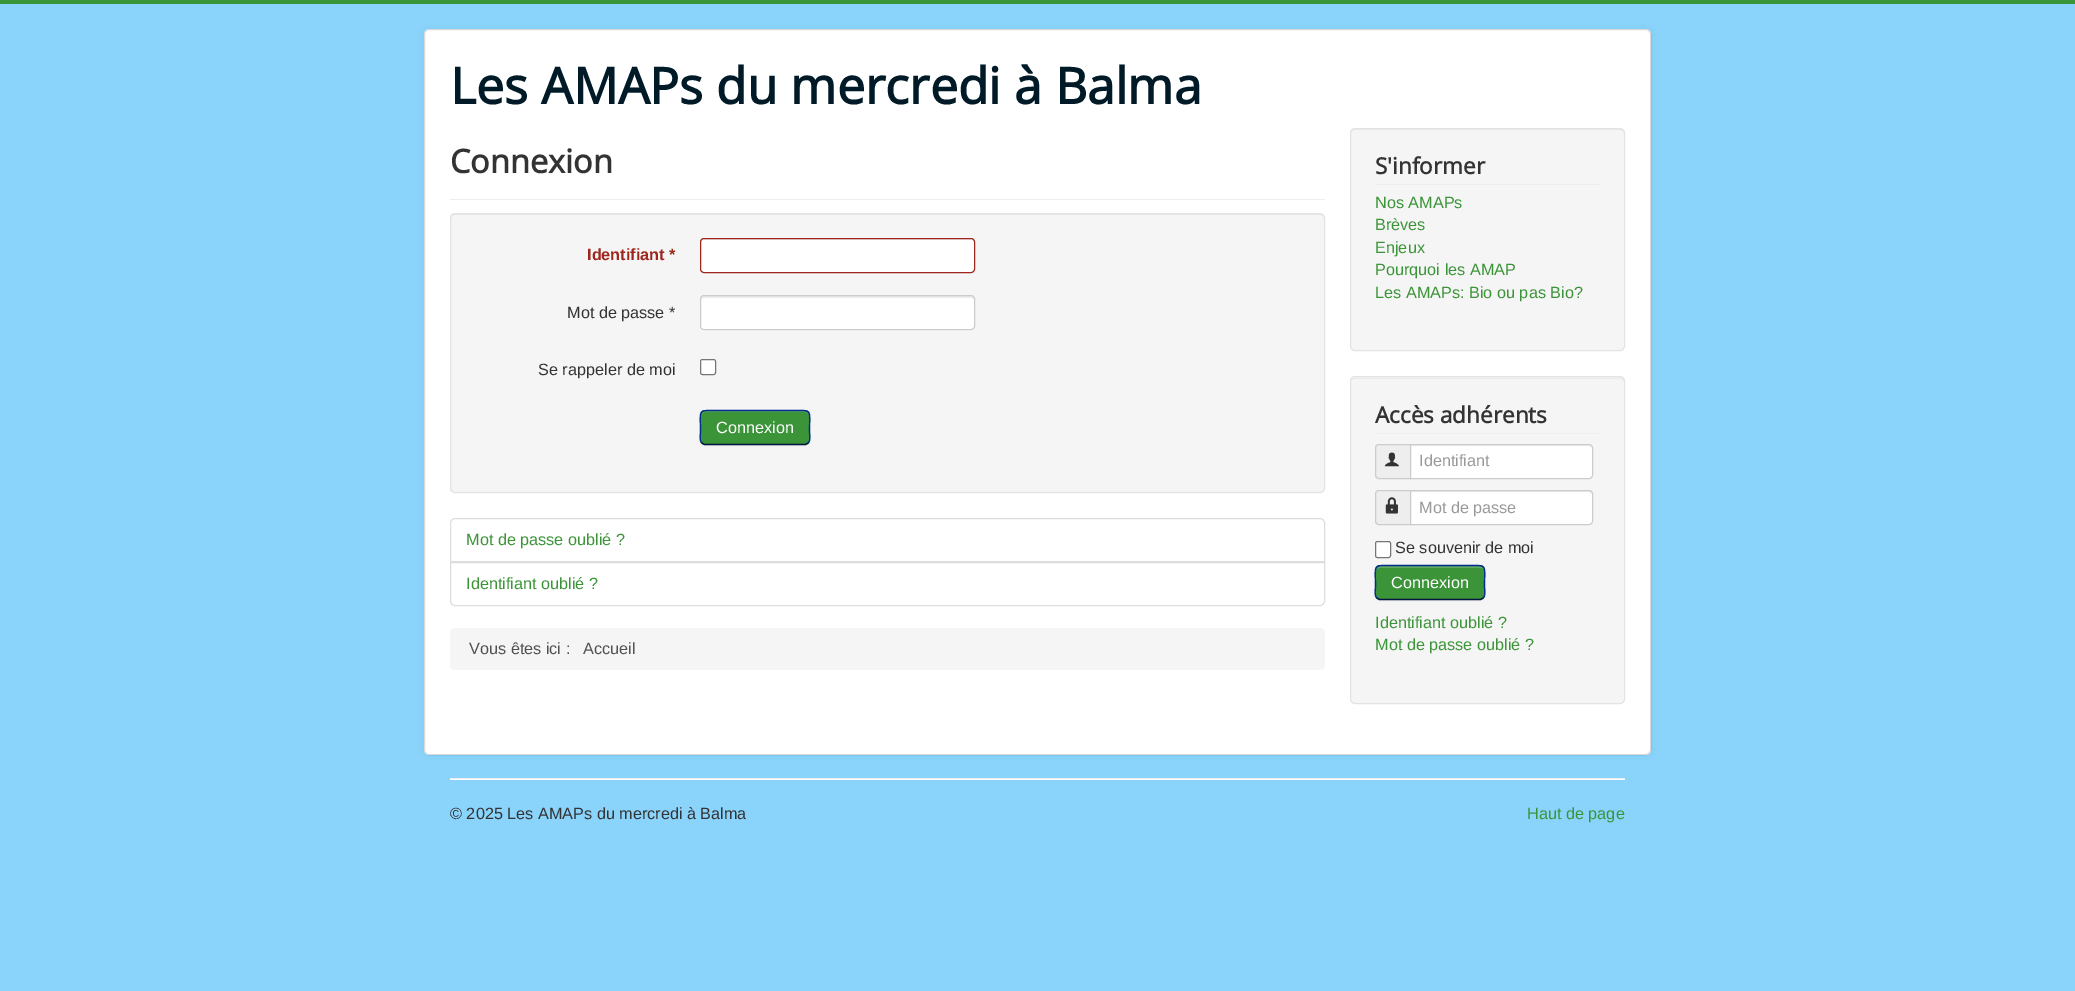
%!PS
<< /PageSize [2075 991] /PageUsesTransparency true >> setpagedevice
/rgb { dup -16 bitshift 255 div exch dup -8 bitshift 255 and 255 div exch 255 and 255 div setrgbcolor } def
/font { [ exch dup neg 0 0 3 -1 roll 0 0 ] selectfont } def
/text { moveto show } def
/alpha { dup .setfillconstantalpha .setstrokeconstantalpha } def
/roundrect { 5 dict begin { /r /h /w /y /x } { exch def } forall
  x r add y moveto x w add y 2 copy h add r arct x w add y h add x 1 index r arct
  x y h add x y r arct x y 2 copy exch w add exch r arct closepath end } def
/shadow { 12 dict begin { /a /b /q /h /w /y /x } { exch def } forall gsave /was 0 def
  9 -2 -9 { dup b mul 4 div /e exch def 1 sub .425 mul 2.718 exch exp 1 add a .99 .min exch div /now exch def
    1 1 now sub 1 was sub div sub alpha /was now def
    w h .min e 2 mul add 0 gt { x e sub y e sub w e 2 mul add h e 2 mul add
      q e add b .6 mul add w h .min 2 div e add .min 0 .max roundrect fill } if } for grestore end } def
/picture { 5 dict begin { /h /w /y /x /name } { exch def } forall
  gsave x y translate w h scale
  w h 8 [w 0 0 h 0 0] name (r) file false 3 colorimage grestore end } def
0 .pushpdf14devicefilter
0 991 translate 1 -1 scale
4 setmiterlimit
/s1 { /OpenSans-Bold 50 font 16#001A27 rgb } def
/s2 { /OpenSans-Bold 32.5 font 16#333333 rgb } def
/s3 { /LiberationSans-Bold 16.25 font 16#9D261D rgb } def
/s4 { /LiberationSans-Regular 16.25 font 16#333333 rgb } def
/s5 { /LiberationSans-Regular 16.25 font 16#FFFFFF rgb } def
/s6 { /LiberationSans-Regular 16.25 font 16#3C9439 rgb } def
/s7 { /LiberationSans-Regular 16.25 font 16#515151 rgb } def
/s8 { /OpenSans-Bold 22.5 font 16#333333 rgb } def
/s9 { /LiberationSans-Regular 16.25 font 16#999999 rgb } def
16#8AD4FC rgb
0 0 2075 991 rectfill
16#3C9439 rgb
0 0 2075 4 rectfill
16#000000 rgb
424 29 1227 726 5 4 0.05 shadow
16#FFFFFF rgb
424 29 1227 726 5 roundrect fill
0.15 alpha
16#000000 rgb
424.5 29.5 1226 725 4.5 roundrect stroke
1 alpha
s1
(Les AMAPs du mercredi à Balma) 450 104 text
16#EEEEEE rgb
450 199 875 1 rectfill
s2
(Connexion) 450 173 text
16#F5F5F5 rgb
450 213 875 280 5 roundrect fill
16#E9E9E9 rgb
455 215 moveto 1320 215 lineto 1322 215 1324 217 1324 219 curveto 1324 216 1323 214 1320 214 curveto 455 214 lineto 452 214 451 216 451 219 curveto 451 217 453 215 455 215 curveto closepath fill
16#E3E3E3 rgb
450.5 213.5 874 279 4.5 roundrect stroke
s3
(Identifiant *) 587 260 text
16#FFFFFF rgb
700 238 275 35 4 roundrect fill
16#ECECEC rgb
704 240 moveto 971 240 lineto 973 240 974 241 974 242 curveto 974 240 973 239 972 239 curveto 704 239 lineto 702 239 701 240 701 242 curveto 701 241 702 240 704 240 curveto closepath fill
16#9D261D rgb
700.5 238.5 274 34 3.5 roundrect stroke
s4
(Mot de passe *) 567 318 text
16#FFFFFF rgb
700 295 275 35 4 roundrect fill
16#ECECEC rgb
704 298 moveto 971 298 lineto 973 298 974 299 974 300 curveto 974 298 lineto 974 297 973 296 972 296 curveto 704 296 lineto 702 296 701 297 701 298 curveto 701 300 lineto 701 299 702 298 704 298 curveto closepath fill
16#CCCCCC rgb
700.5 295.5 274 34 3.5 roundrect stroke
s4
(Se rappeler de moi) 538 375 text
16#FFFFFF rgb
700.5 359.5 15 15 2 roundrect gsave fill grestore
16#767676 rgb
stroke
16#000000 rgb
700 411 110 35 5 1 0.05 shadow
16#3C9439 rgb
700 410 110 35 5 roundrect fill
16#63A961 rgb
705 412 moveto 805 412 lineto 807 412 809 414 809 416 curveto 809 407 792 411 788 411 curveto 722 411 lineto 718 411 701 407 701 416 curveto 701 414 703 412 705 412 curveto closepath fill
16#001641 rgb
1.2 setlinewidth
808 443 moveto 805.5 444.5 lineto 704.5 444.5 lineto 702 443 lineto stroke
16#002F8D rgb
702 443 moveto 699 440.5 700.5 435 700.5 431.5 curveto 700.5 407.5 696.5 410.5 721.5 410.5 curveto 788.5 410.5 lineto 813.5 410.5 809.5 407.5 809.5 431.5 curveto 809.5 435 811 440.5 808 443 curveto stroke
s5
(Connexion) 716 433 text
16#DDDDDD rgb
1 setlinewidth
455 518.5 moveto 1320 518.5 lineto 1322.5 518.5 1324.5 520.5 1324.5 523 curveto 1324.5 562.5 lineto 450.5 562.5 lineto 450.5 523 lineto 450.5 520.5 452.5 518.5 455 518.5 curveto closepath stroke
s6
(Mot de passe oublié ?) 466 545 text
16#DDDDDD rgb
450.5 561.5 moveto 1324.5 561.5 lineto 1324.5 601 lineto 1324.5 603.5 1322.5 605.5 1320 605.5 curveto 455 605.5 lineto 452.5 605.5 450.5 603.5 450.5 601 curveto closepath stroke
s6
(Identifiant oublié ?) 466 589 text
16#F5F5F5 rgb
450 628 875 42 5 roundrect fill
s7
(Vous êtes ici :) 469 654 text
(Accueil) 583 654 text
16#F5F5F5 rgb
1350 128 275 223 5 roundrect fill
16#E9E9E9 rgb
1355 130 moveto 1620 130 lineto 1622 130 1624 132 1624 134 curveto 1624 131 1623 129 1620 129 curveto 1355 129 lineto 1352 129 1351 131 1351 134 curveto 1351 132 1353 130 1355 130 curveto closepath fill
16#E3E3E3 rgb
1350.5 128.5 274 222 4.5 roundrect stroke
16#EEEEEE rgb
1375 184 225 1 rectfill
s8
(S'informer) 1375 174 text
s6
(Nos AMAPs) 1375 208 text
(Brèves) 1375 230 text
(Enjeux) 1375 253 text
(Pourquoi les AMAP) 1375 275 text
(Les AMAPs: Bio ou pas Bio?) 1375 298 text
16#F5F5F5 rgb
1350 376 275 328 5 roundrect fill
16#E9E9E9 rgb
1355 379 moveto 1621 379 lineto 1624 381 lineto 1624 382 lineto 1624 380 1622 378 1620 378 curveto 1355 378 lineto 1353 378 1351 380 1351 382 curveto 1351 380 1353 379 1355 379 curveto closepath fill
16#E3E3E3 rgb
1350.5 376.5 274 327 4.5 roundrect stroke
16#EEEEEE rgb
1375 433 225 1 rectfill
s8
(Accès adhérents) 1375 423 text
16#EEEEEE rgb
1379 444.5 moveto 1410.5 444.5 lineto 1410.5 478.5 lineto 1379 478.5 lineto 1377 478.5 1375.5 477 1375.5 475 curveto 1375.5 448 lineto 1375.5 446 1377 444.5 1379 444.5 curveto closepath gsave fill grestore
16#CCCCCC rgb
stroke
(pic1.raw) 1384 452 15 15 picture
16#FFFFFF rgb
1410 444 moveto 1589 444 lineto 1591 444 1593 446 1593 448 curveto 1593 475 lineto 1593 477 1591 479 1589 479 curveto 1410 479 lineto closepath fill
16#ECECEC rgb
1411 446 moveto 1589 446 lineto 1590 446 1591 447 1591 449 curveto 1591 447 1591 445 1589 445 curveto 1411 445 lineto closepath fill
16#CCCCCC rgb
1410.5 444.5 moveto 1589 444.5 lineto 1591 444.5 1592.5 446 1592.5 448 curveto 1592.5 475 lineto 1592.5 477 1591 478.5 1589 478.5 curveto 1410.5 478.5 lineto closepath stroke
s9
(Identifiant) 1419 466 text
16#EEEEEE rgb
1379 490.5 moveto 1410.5 490.5 lineto 1410.5 524.5 lineto 1379 524.5 lineto 1377 524.5 1375.5 523 1375.5 521 curveto 1375.5 494 lineto 1375.5 492 1377 490.5 1379 490.5 curveto closepath gsave fill grestore
16#CCCCCC rgb
stroke
(pic2.raw) 1385 497 13 17 picture
16#FFFFFF rgb
1410 490 moveto 1589 490 lineto 1591 490 1593 492 1593 494 curveto 1593 521 lineto 1593 523 1591 525 1589 525 curveto 1410 525 lineto closepath fill
16#ECECEC rgb
1411 492 moveto 1589 492 lineto 1590 492 1591 494 1591 495 curveto 1591 493 1591 491 1589 491 curveto 1411 491 lineto closepath fill
16#CCCCCC rgb
1410.5 490.5 moveto 1589 490.5 lineto 1591 490.5 1592.5 492 1592.5 494 curveto 1592.5 521 lineto 1592.5 523 1591 524.5 1589 524.5 curveto 1410.5 524.5 lineto closepath stroke
s9
(Mot de passe) 1419 513 text
16#FFFFFF rgb
1375.5 541.5 15 16 2 roundrect gsave fill grestore
16#767676 rgb
stroke
s4
(Se souvenir de moi) 1395 553 text
16#000000 rgb
1375 566 110 35 5 1 0.05 shadow
16#3C9439 rgb
1375 565 110 35 5 roundrect fill
16#63A961 rgb
1380 568 moveto 1480 568 lineto 1482 568 1484 569 1484 571 curveto 1484 562 1467 566 1463 566 curveto 1397 566 lineto 1393 566 1376 562 1376 571 curveto 1376 569 1378 568 1380 568 curveto closepath fill
16#001641 rgb
1.2 setlinewidth
1483 598 moveto 1480.5 599.5 lineto 1379.5 599.5 lineto 1377 598 lineto stroke
16#002F8D rgb
1377 598 moveto 1374 595.5 1375.5 590 1375.5 586.5 curveto 1375.5 562.5 1371.5 565.5 1396.5 565.5 curveto 1463.5 565.5 lineto 1488.5 565.5 1484.5 562.5 1484.5 586.5 curveto 1484.5 590 1486 595.5 1483 598 curveto stroke
s5
(Connexion) 1391 588 text
s6
(Identifiant oublié ?) 1375 628 text
(Mot de passe oublié ?) 1375 650 text
16#EEEEEE rgb
450 778 1175 1 rectfill
16#FFFFFF rgb
450 779 1175 1 rectfill
s4
(© 2025 Les AMAPs du mercredi à Balma) 450 819 text
s6
(Haut de page) 1527 819 text
.poppdf14devicefilter showpage
